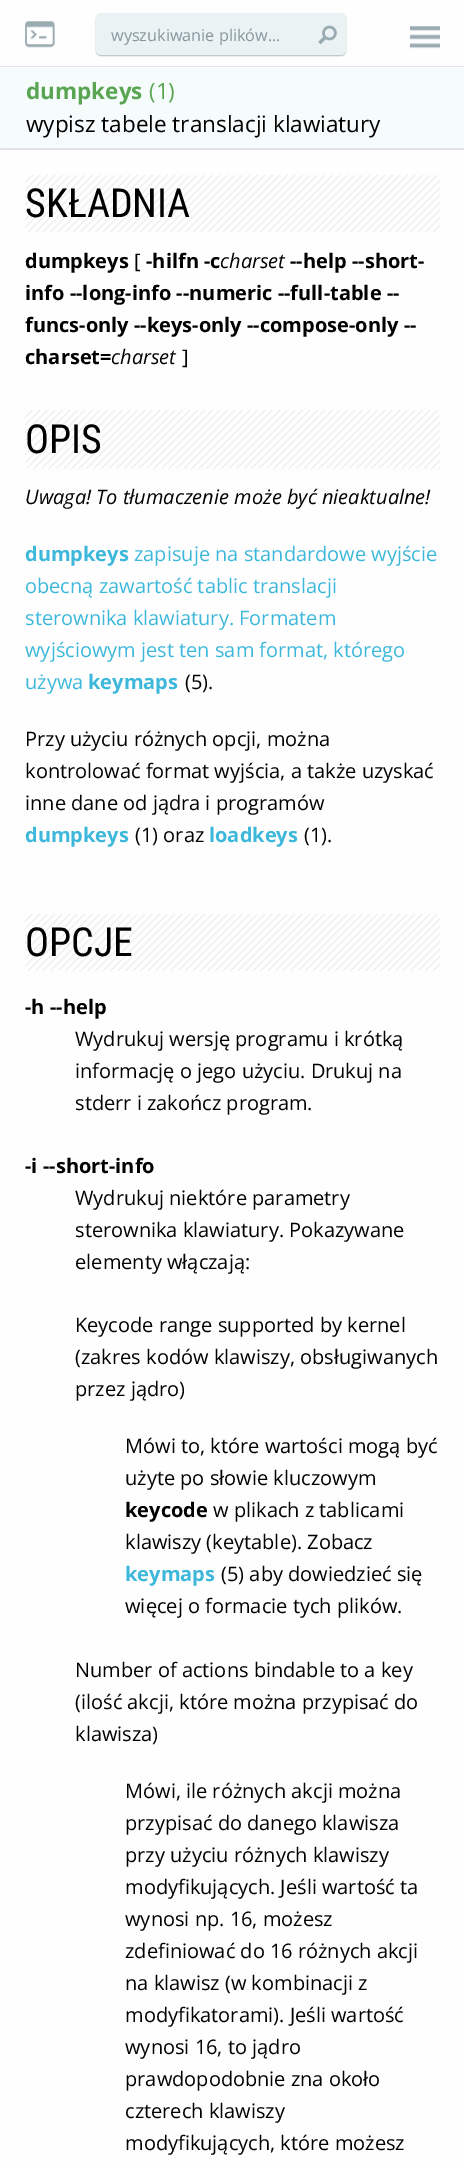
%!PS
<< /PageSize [464 2169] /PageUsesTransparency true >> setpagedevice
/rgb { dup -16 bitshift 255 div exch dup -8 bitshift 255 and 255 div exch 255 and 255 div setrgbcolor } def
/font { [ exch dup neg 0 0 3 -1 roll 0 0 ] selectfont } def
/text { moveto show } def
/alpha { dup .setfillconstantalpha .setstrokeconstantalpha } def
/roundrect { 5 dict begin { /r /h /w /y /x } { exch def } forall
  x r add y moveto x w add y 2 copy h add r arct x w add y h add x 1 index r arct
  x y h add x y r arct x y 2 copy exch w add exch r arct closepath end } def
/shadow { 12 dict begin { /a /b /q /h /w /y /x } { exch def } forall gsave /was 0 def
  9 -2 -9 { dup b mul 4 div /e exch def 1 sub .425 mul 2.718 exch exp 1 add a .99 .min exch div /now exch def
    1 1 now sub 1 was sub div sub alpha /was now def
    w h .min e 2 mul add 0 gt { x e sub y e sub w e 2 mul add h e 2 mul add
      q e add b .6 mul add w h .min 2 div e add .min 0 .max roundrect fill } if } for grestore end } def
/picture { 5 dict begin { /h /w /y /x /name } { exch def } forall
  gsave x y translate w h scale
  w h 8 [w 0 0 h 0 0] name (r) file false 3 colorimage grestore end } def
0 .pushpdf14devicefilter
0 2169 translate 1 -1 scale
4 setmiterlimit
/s1 { /OpenSans-Regular 16.25 font 16#86969D rgb } def
/s2 { /OpenSans-Bold 22.5 font 16#59A552 rgb } def
/s3 { /OpenSans-Regular 22.5 font 16#59A552 rgb } def
/s4 { /OpenSans-Regular 22.5 font 16#000000 rgb } def
/s5 { /RobotoCondensed-Regular 40 font 16#000000 rgb } def
/s6 { /OpenSans-Bold 20 font 16#000000 rgb } def
/s7 { /OpenSans-Regular 20 font 16#000000 rgb } def
/s8 { /OpenSans-Italic 20 font 16#000000 rgb } def
/s9 { /OpenSans-Bold 20 font 16#3DB8DB rgb } def
/s10 { /OpenSans-Regular 20 font 16#3DB8DB rgb } def
16#FEFEFE rgb
0 0 464 2169 rectfill
16#DCE5E7 rgb
0 66 464 1 rectfill
(pic1.raw) 25 21 30 27 picture
16#062F37 rgb
96 14 250 42 5 0.5 0.3 shadow
16#EAF2F4 rgb
96 13 250 42 5 roundrect fill
s1
(wyszukiwanie plików...) 111 41 text
(pic2.raw) 318 25 19 20 picture
(pic3.raw) 410 26 30 23 picture
16#F6FBFC rgb
0 68 464 82 rectfill
16#DFE3E9 rgb
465 150 moveto 0 150 lineto 1 148 lineto 464 148 lineto closepath fill
s2
(dumpkeys) 26 99 text
s3
(\(1\)) 149 99 text
s4
(wypisz tabele translacji klawiatury) 26 132 text
(pic4.raw) 25 175 415 58 picture
s5
(SKŁADNIA) 25 217 text
s6
(dumpkeys) 25 268 text
s7
([) 134 268 text
s6
(-hilfn -c) 146 268 text
s8
(charset) 220 268 text
s6
(--help --short-) 290 268 text
(info --long-info --numeric --full-table --) 25 300 text
(funcs-only --keys-only --compose-only --) 25 332 text
(charset=) 25 364 text
s8
(charset) 111 364 text
s7
(]) 182 364 text
(pic5.raw) 25 410 415 59 picture
s5
(OPIS) 25 453 text
s8
(Uwaga! To tłumaczenie może być nieaktualne!) 25 504 text
s9
(dumpkeys) 25 561 text
s10
(zapisuje na standardowe wyjście) 134 561 text
(obecną zawartość tablic translacji) 25 593 text
(sterownika klawiatury. Formatem) 25 625 text
(wyjściowym jest ten sam format, którego) 25 657 text
(używa) 25 689 text
s9
(keymaps) 88 689 text
s7
(\(5\).) 185 689 text
(Przy użyciu różnych opcji, można) 25 746 text
(kontrolować format wyjścia, a także uzyskać) 25 778 text
(inne dane od jądra i programów) 25 810 text
s9
(dumpkeys) 25 842 text
s7
(\(1\) oraz) 135 842 text
s9
(loadkeys) 209 842 text
s7
(\(1\).) 304 842 text
(pic6.raw) 25 914 415 57 picture
s5
(OPCJE) 25 956 text
s6
(-h --help) 25 1014 text
s7
(Wydrukuj wersję programu i krótką) 75 1046 text
(informację o jego użyciu. Drukuj na) 75 1078 text
(stderr i zakończ program.) 75 1110 text
s6
(-i --short-info) 25 1173 text
s7
(Wydrukuj niektóre parametry) 75 1205 text
(sterownika klawiatury. Pokazywane) 75 1237 text
(elementy włączają:) 75 1269 text
(Keycode range supported by kernel) 75 1332 text
(\(zakres kodów klawiszy, obsługiwanych) 75 1364 text
(przez jądro\)) 75 1396 text
(Mówi to, które wartości mogą być) 125 1453 text
(użyte po słowie kluczowym) 125 1485 text
s6
(keycode) 125 1517 text
s7
(w plikach z tablicami) 213 1517 text
(klawiszy \(keytable\). Zobacz) 125 1549 text
s9
(keymaps) 125 1581 text
s7
(\(5\) aby dowiedzieć się) 221 1581 text
(więcej o formacie tych plików.) 125 1613 text
(Number of actions bindable to a key) 75 1677 text
(\(ilość akcji, które można przypisać do) 75 1709 text
(klawisza\)) 75 1741 text
(Mówi, ile różnych akcji można) 125 1798 text
(przypisać do danego klawisza) 125 1830 text
(przy użyciu różnych klawiszy) 125 1862 text
(modyfikujących. Jeśli wartość ta) 125 1894 text
(wynosi np. 16, możesz) 125 1926 text
(zdefiniować do 16 różnych akcji) 125 1958 text
(na klawisz \(w kombinacji z) 125 1990 text
(modyfikatorami\). Jeśli wartość) 125 2022 text
(wynosi 16, to jądro) 125 2054 text
(prawdopodobnie zna około) 125 2086 text
(czterech klawiszy) 125 2118 text
(modyfikujących, które możesz) 125 2150 text
.poppdf14devicefilter showpage
